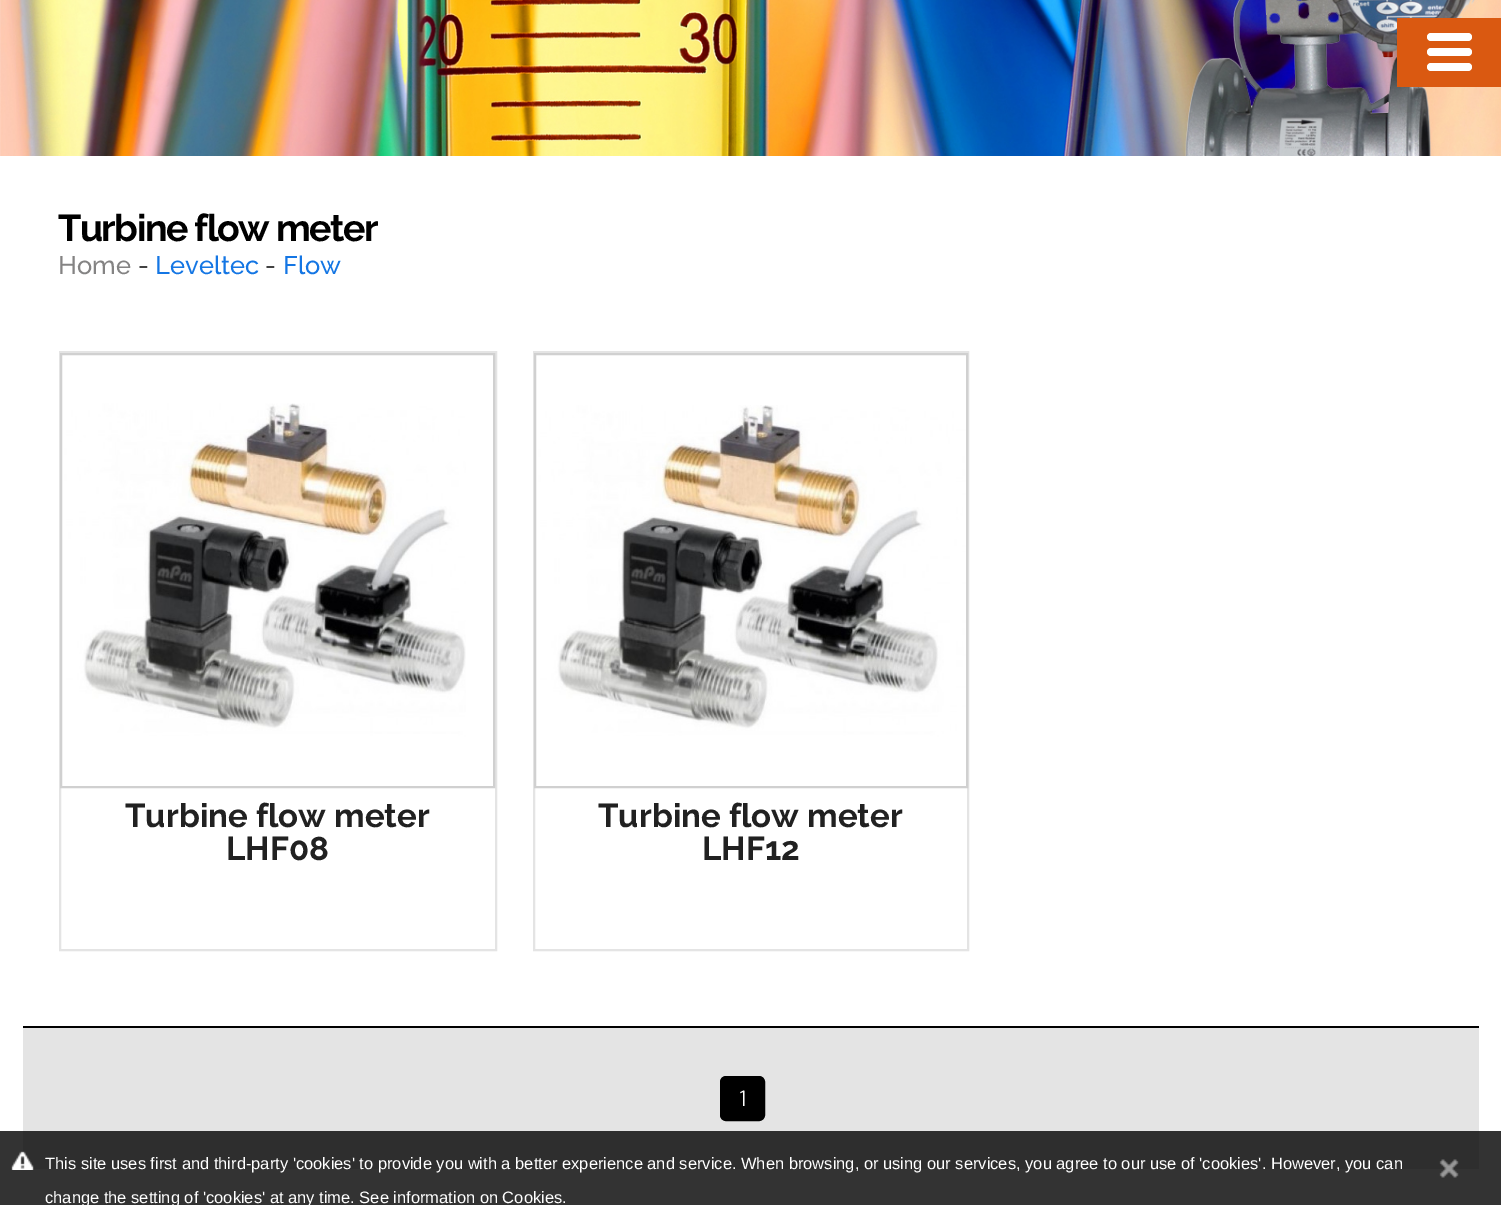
%!PS
<< /PageSize [1501 1205] >> setpagedevice
/rgb { dup -16 bitshift 255 div exch dup -8 bitshift 255 and 255 div exch 255 and 255 div setrgbcolor } def
/font { [ exch dup neg 0 0 3 -1 roll 0 0 ] selectfont } def
/text { moveto show } def
/roundrect { 5 dict begin { /r /h /w /y /x } { exch def } forall
  x r add y moveto x w add y 2 copy h add r arct x w add y h add x 1 index r arct
  x y h add x y r arct x y 2 copy exch w add exch r arct closepath end } def
/picture { 5 dict begin { /h /w /y /x /name } { exch def } forall
  gsave x y translate w h scale
  w h 8 [w 0 0 h 0 0] name (r) file false 3 colorimage grestore end } def
0 1205 translate 1 -1 scale
4 setmiterlimit
/s1 { /Raleway-Medium 25.5 font 16#848383 rgb } def
/s2 { /Raleway-Medium 25.5 font 16#424242 rgb } def
/s3 { /Raleway-Medium 25.5 font 16#1476E4 rgb } def
/s4 { /Raleway-Bold 33 font 16#212121 rgb } def
/s5 { /Barlow-Regular 22 font 16#FFFFFF rgb } def
/s6 { /LiberationSans-Regular 16.5 font 16#FFFFFF rgb } def
16#FFFFFF rgb
0 0 1501 1205 rectfill
16#333333 rgb
0 1131 1501 74 rectfill
(pic1.raw) 0 0 1501 156 picture
16#DA5911 rgb
1397 18 104 69 rectfill
16#FFFFFF rgb
1427 33 45 8 4 roundrect fill
1427 48 45 8 4 roundrect fill
1427 63 45 8 4 roundrect fill
/Raleway-Bold 37.5 font
16#000000 rgb
58 241 moveto -1.5 0 (Turbine flow meter) ashow
s1
(Home) 58 274 text
s2
(-) 138 274 text
s3
(Leveltec) 155 274 text
s2
(-) 265 274 text
s3
(Flow) 283 274 text
16#E4E4E4 rgb
2 setlinewidth
60 352 436 598 rectstroke
(pic2.raw) 62 403 404 334 picture
16#D0D0D0 rgb
61 354 433 433 rectstroke
s4
(Turbine flow meter) 125 827 text
(LHF08) 226 860 text
16#E4E4E4 rgb
534 352 434 598 rectstroke
(pic3.raw) 536 405 430 332 picture
16#D0D0D0 rgb
535 354 432 433 rectstroke
s4
(Turbine flow meter) 598 827 text
(LHF12) 702 860 text
16#E4E4E4 rgb
23 1028 1456 103 rectfill
16#2E2E2E rgb
23 1131 1456 38 rectfill
16#000000 rgb
23 1026 1456 2 rectfill
721 1077 43 43 5 roundrect gsave fill grestore
stroke
s5
(1) 739 1106 text
(pic4.raw) 11 1151 23 19 picture
s6
(This site uses first and third-party 'cookies' to provide you with a better experience and service. When browsing, or using our services, you agree to our use of 'cookies'. However, you can) 45 1169 text
(pic5.raw) 1439 1159 20 19 picture
(change the setting of 'cookies' at any time. See information on Cookies.) 45 1203 text
showpage
